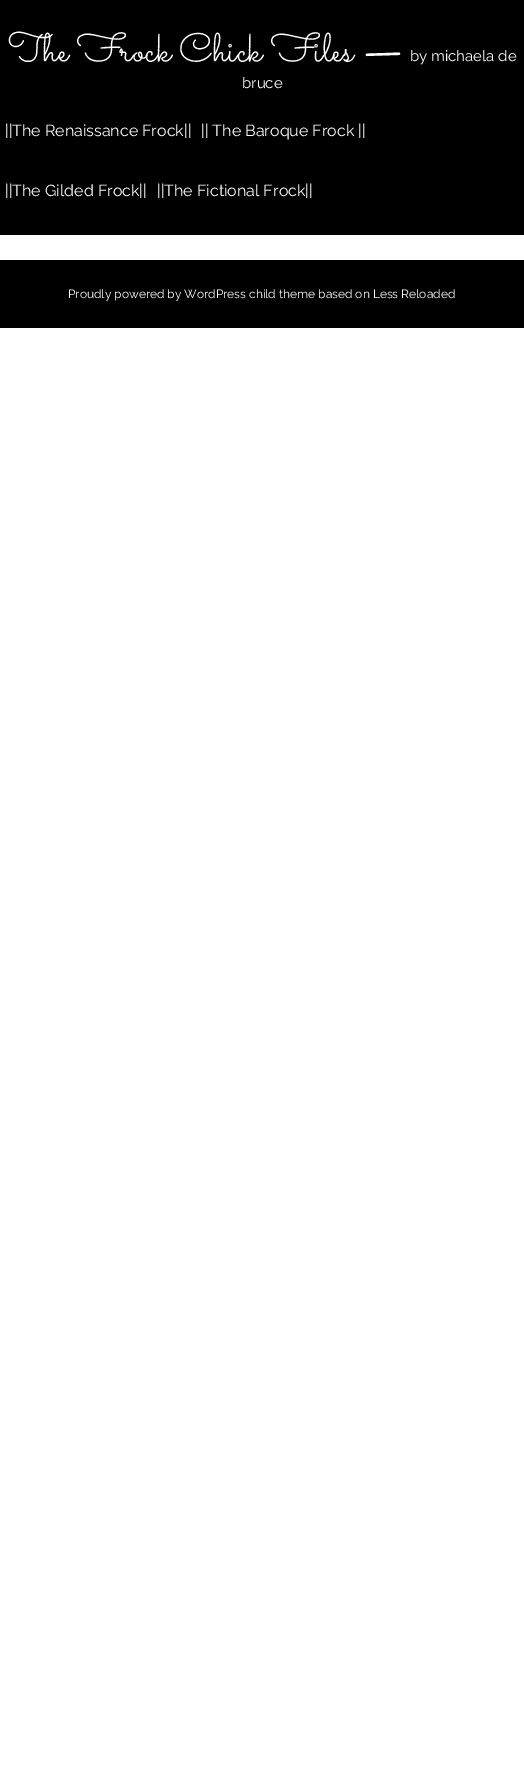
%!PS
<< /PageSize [524 1779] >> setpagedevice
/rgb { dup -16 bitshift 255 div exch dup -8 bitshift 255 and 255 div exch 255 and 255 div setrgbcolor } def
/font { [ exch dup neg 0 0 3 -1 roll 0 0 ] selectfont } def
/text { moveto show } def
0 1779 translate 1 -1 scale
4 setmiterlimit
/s1 { /Sacramento-Regular 40 font 16#FFFFFF rgb } def
/s2 { /Sacramento-Bold 40 font 16#FFFFFF rgb } def
/s3 { /Raleway-Thin 15 font 16#FFFFFF rgb } def
/s4 { /Raleway-Thin 16 font 16#FFFFFF rgb } def
/s5 { /Raleway-Thin 12 font 16#FFFFFF rgb } def
16#FFFFFF rgb
0 0 524 1779 rectfill
16#000000 rgb
0 0 524 235 rectfill
s1
(The Frock Chick Files) 8 61 text
s2
(—) 361 61 text
s3
(by michaela de) 410 61 text
(bruce) 242 88 text
s4
(||The Renaissance Frock||) 5 136 text
(|| The Baroque Frock ||) 201 136 text
(||The Gilded Frock||) 5 196 text
(||The Fictional Frock||) 157 196 text
16#000000 rgb
0 260 524 68 rectfill
s5
(Proudly powered by WordPress child theme based on Less Reloaded) 68 298 text
showpage
